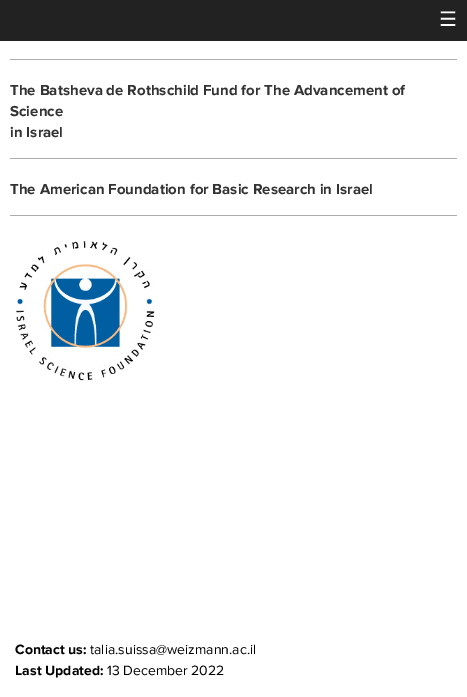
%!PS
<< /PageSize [467 697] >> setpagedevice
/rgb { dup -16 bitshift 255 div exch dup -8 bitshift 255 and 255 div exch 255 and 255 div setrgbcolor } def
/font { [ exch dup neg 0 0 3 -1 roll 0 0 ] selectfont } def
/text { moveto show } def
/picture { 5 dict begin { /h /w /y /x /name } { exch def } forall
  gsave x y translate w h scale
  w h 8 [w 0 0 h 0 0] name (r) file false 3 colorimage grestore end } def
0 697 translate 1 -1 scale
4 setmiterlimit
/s1 { /DejaVuSans-Regular 20 font 16#FFFFFF rgb } def
/s2 { /ProximaNova-Bold 15 font 16#333333 rgb } def
/s3 { /ProximaNova-Bold 14 font 16#000000 rgb } def
/s4 { /ProximaNova-Regular 14 font 16#000000 rgb } def
16#FFFFFF rgb
0 0 467 697 rectfill
16#222222 rgb
0 0 467 41 rectfill
s1
(☰) 439 26 text
16#ADADAD rgb
10 59 447 1 rectfill
10 158 447 1 rectfill
s2
(The Batsheva de Rothschild Fund for The Advancement of) 10 95 text
(Science) 10 116 text
(in Israel) 10 137 text
16#ADADAD rgb
10 215 447 1 rectfill
s2
(The American Foundation for Basic Research in Israel) 10 194 text
(pic1.raw) 16 241 139 140 picture
s3
(Contact us:) 15 654 text
s4
(talia.suissa@weizmann.ac.il) 90 654 text
s3
(Last Updated:) 15 675 text
s4
(13 December 2022) 107 675 text
showpage
